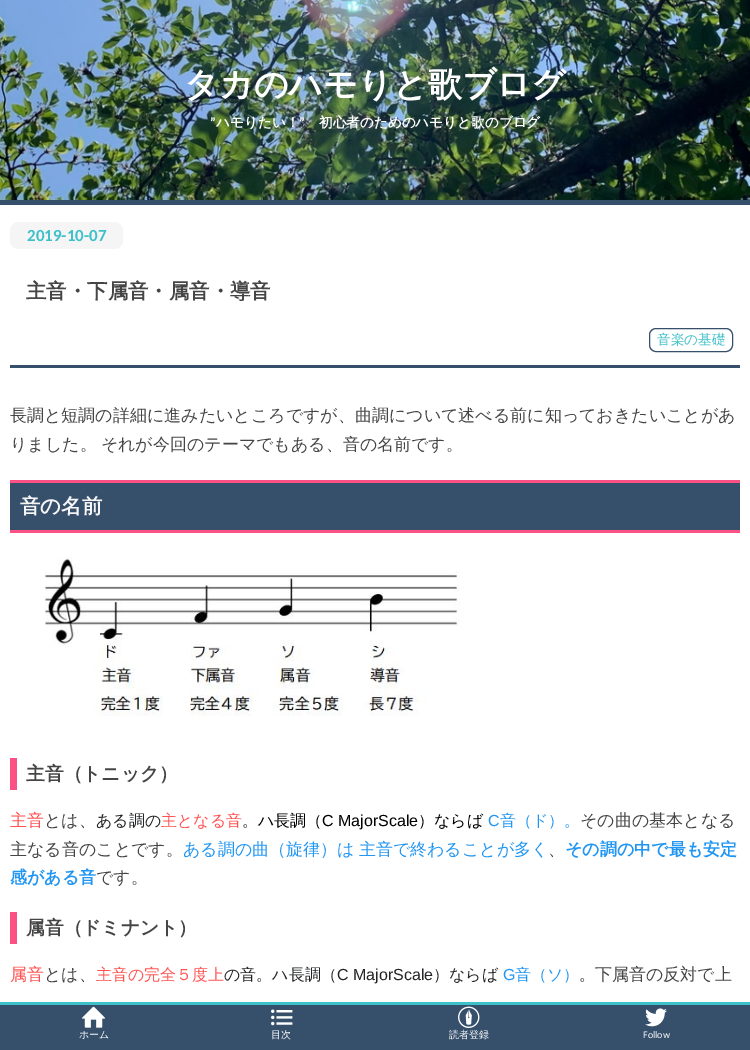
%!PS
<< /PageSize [750 1050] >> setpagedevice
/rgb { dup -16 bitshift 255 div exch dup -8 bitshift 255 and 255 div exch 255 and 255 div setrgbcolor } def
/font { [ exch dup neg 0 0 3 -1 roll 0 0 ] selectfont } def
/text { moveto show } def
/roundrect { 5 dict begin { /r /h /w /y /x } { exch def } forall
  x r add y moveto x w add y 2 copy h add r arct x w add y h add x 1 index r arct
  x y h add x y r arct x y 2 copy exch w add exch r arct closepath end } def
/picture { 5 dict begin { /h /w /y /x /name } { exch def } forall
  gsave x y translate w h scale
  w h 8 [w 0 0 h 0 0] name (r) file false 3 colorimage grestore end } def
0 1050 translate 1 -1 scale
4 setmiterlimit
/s1 { /WenQuanYiZenHei-Bold 34 font 16#FFFFFF rgb } def
/s2 { /Carlito-Bold 13.6 font 16#FFFFFF rgb } def
/s3 { /WenQuanYiZenHei-Bold 13.6 font 16#FFFFFF rgb } def
/s4 { /Carlito-Bold 17 font 16#3FC1C9 rgb } def
/s5 { /WenQuanYiZenHei-Bold 20.4 font 16#454545 rgb } def
/s6 { /WenQuanYiZenHei-Medium 13.6 font 16#3FC1C9 rgb } def
/s7 { /WenQuanYiZenHei-Medium 17 font 16#454545 rgb } def
/s8 { /WenQuanYiZenHei-Bold 20.4 font 16#F5F5F5 rgb } def
/s9 { /WenQuanYiZenHei-Bold 18.75 font 16#454545 rgb } def
/s10 { /WenQuanYiZenHei-Medium 17 font 16#FF5252 rgb } def
/s11 { /WenQuanYiZenHei-Medium 16 font 16#242527 rgb } def
/s12 { /WenQuanYiZenHei-Medium 16 font 16#FF5252 rgb } def
/s13 { /WenQuanYiZenHei-Medium 16 font 16#000000 rgb } def
/s14 { /LiberationSans-Regular 16 font 16#000000 rgb } def
/s15 { /LiberationSans-Regular 16 font 16#2196F3 rgb } def
/s16 { /WenQuanYiZenHei-Medium 16 font 16#2196F3 rgb } def
/s17 { /WenQuanYiZenHei-Bold 17 font 16#2196F3 rgb } def
/s18 { /LiberationSans-Regular 16 font 16#242527 rgb } def
/s19 { /WenQuanYiZenHei-Medium 10 font 16#FFFFFF rgb } def
/s20 { /Carlito-Regular 10 font 16#FFFFFF rgb } def
16#364F6B rgb
0 0 750 1050 rectfill
(pic1.raw) 0 0 750 200 picture
s1
(タカのハモりと歌ブログ) 184 96 text
s2
(”) 210 127 text
s3
(ハモりたい！) 216 127 text
s2
(”) 299 127 text
s3
(初心者のためのハモりと歌のブログ) 319 127 text
0 205 750 797 rectfill
16#364F6B rgb
10 365 730 3 rectfill
16#F5F5F5 rgb
19 222 moveto 61 222 lineto 61 249 lineto 19 249 lineto 14 249 10 245 10 240 curveto 10 231 lineto 10 226 14 222 19 222 curveto closepath fill
61 222 28 27 rectfill
89 222 moveto 114 222 lineto 119 222 123 226 123 231 curveto 123 240 lineto 123 245 119 249 114 249 curveto 89 249 lineto closepath fill
s4
(2019-10-07) 27 241 text
s5
(主音・下属音・属音・導音) 26 298 text
16#364F6B rgb
649.5 328.5 83 23 6.5 roundrect stroke
s6
(音楽の基礎) 657 344 text
s7
(長調と短調の詳細に進みたいところですが、曲調について述べる前に知っておきたいことがあ) 10 421 text
10 450 moveto -1 0 32 (りました。 それが今回のテーマでもある、音の名前です。) widthshow
16#364F6B rgb
10 483 730 47 rectfill
16#FC5185 rgb
10 480 730 3 rectfill
10 530 730 3 rectfill
s8
(音の名前) 20 513 text
(pic2.raw) 44 557 416 159 picture
16#FC5185 rgb
10 758 7 32 rectfill
s9
(主音（トニック）) 26 780 text
s10
(主音) 10 826 text
s7
(とは、) 44 826 text
s11
(ある調の) 96 826 text
s12
(主となる音) 161 826 text
s11
(。) 242 826 text
s13
(ハ長調（) 258 826 text
s14
(C MajorScale) 322 826 text
s13
(）ならば) 418 826 text
s15
(C) 488 826 text
s16
(音（ド）。) 500 826 text
s7
(その曲の基本となる) 580 826 text
(主なる音のことです。) 10 855 text
16#2196F3 rgb
183 855 moveto -1 0 32 (ある調の曲（旋律）は 主音で終わることが多く) widthshow
s7
(、) 548 855 text
s17
(その調の中で最も安定) 565 855 text
(感がある音) 10 883 text
s7
(です。) 96 883 text
16#FC5185 rgb
10 912 7 32 rectfill
s9
(属音（ドミナント）) 26 934 text
s10
(属音) 10 980 text
s7
(とは、) 44 980 text
s12
(主音の完全５度上) 96 980 text
s11
(の音。ハ長調（) 224 980 text
s18
(C MajorScale) 337 980 text
s11
(）ならば) 433 980 text
s15
(G) 503 980 text
s16
(音（ソ）) 515 980 text
s11
(。) 579 980 text
s7
(下属音の反対で上) 595 980 text
16#3FC1C9 rgb
0 1002 750 3 rectfill
(pic3.raw) 81 1006 25 22 picture
s19
(ホーム) 79 1038 text
(pic4.raw) 271 1009 22 17 picture
(目次) 271 1038 text
(pic5.raw) 458 1006 22 22 picture
(読者登録) 449 1038 text
(pic6.raw) 645 1008 22 19 picture
s20
(Follow) 643 1038 text
showpage
